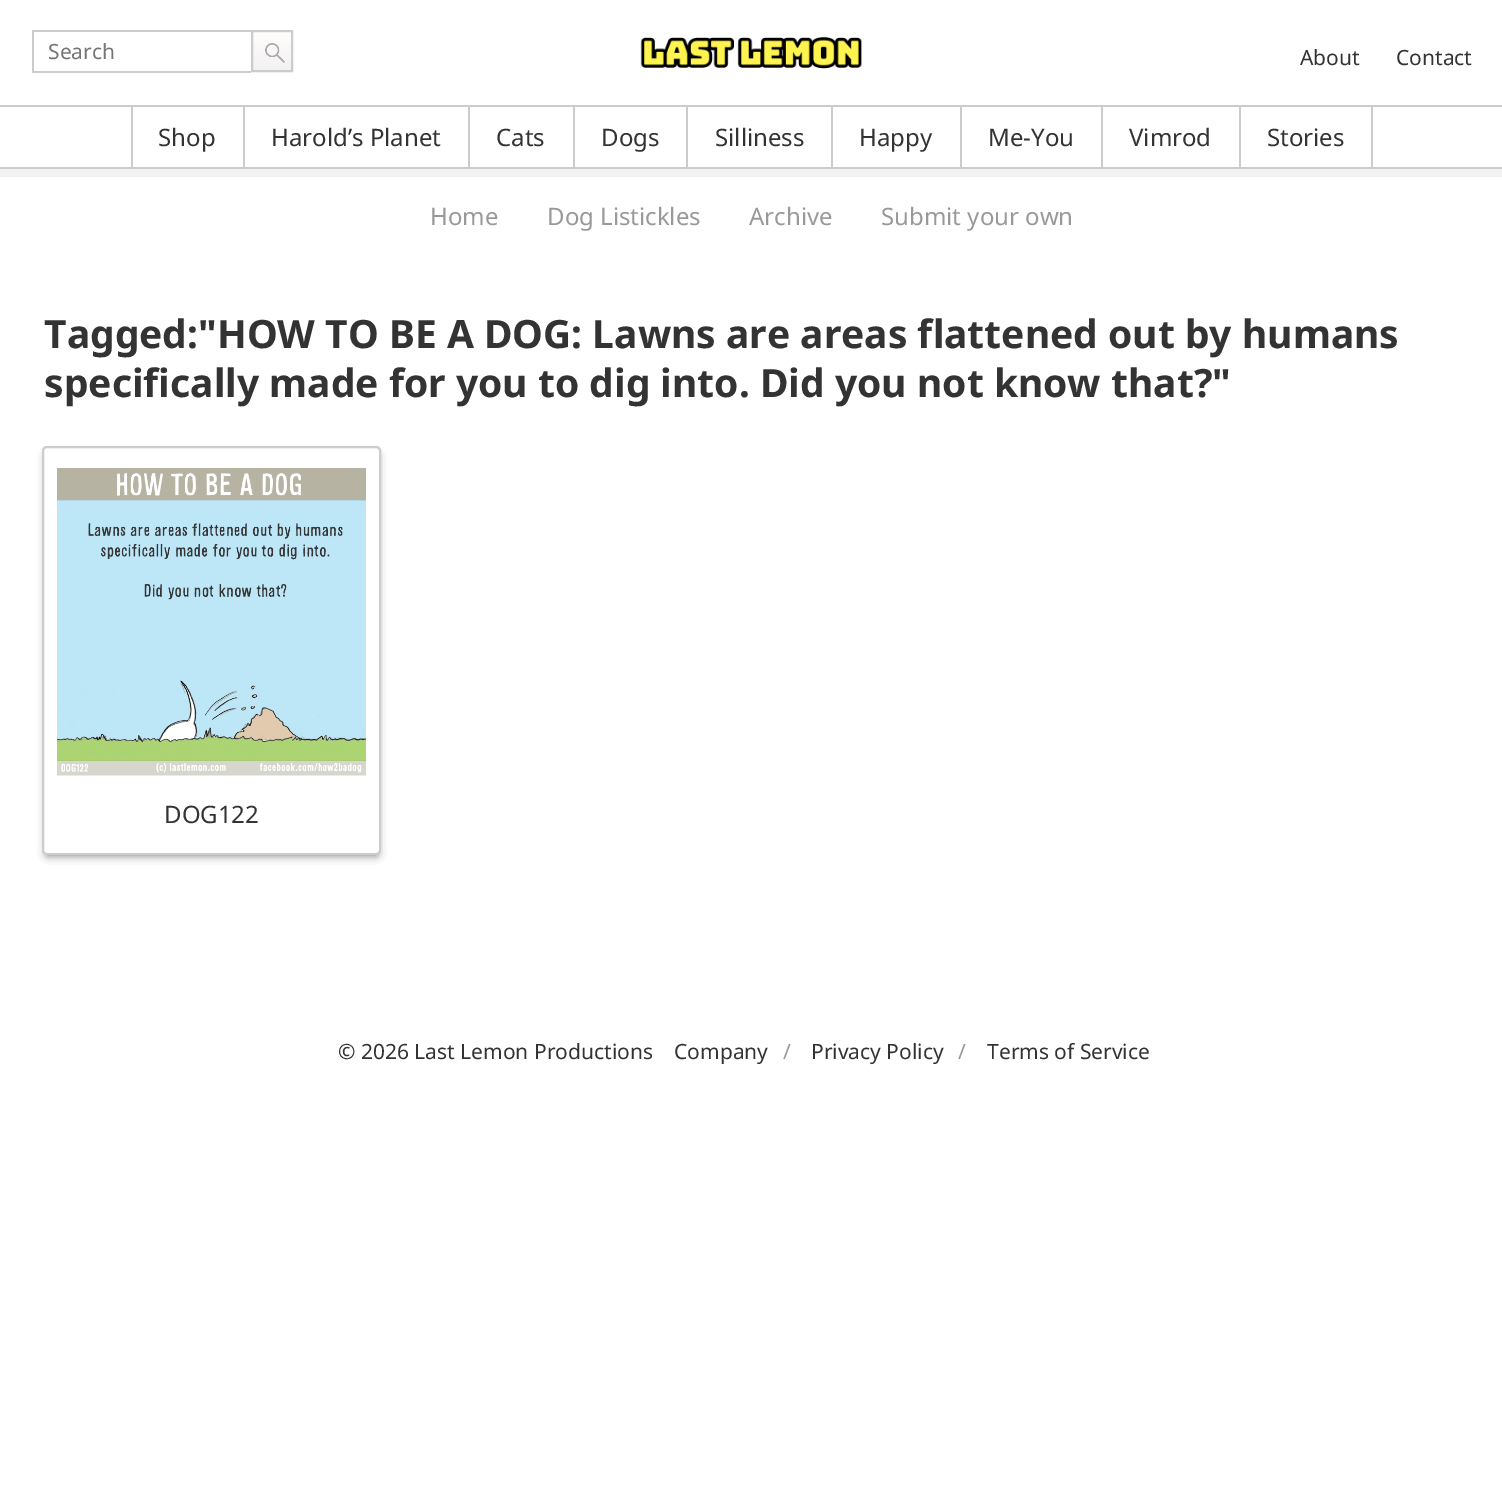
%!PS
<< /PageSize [1502 1491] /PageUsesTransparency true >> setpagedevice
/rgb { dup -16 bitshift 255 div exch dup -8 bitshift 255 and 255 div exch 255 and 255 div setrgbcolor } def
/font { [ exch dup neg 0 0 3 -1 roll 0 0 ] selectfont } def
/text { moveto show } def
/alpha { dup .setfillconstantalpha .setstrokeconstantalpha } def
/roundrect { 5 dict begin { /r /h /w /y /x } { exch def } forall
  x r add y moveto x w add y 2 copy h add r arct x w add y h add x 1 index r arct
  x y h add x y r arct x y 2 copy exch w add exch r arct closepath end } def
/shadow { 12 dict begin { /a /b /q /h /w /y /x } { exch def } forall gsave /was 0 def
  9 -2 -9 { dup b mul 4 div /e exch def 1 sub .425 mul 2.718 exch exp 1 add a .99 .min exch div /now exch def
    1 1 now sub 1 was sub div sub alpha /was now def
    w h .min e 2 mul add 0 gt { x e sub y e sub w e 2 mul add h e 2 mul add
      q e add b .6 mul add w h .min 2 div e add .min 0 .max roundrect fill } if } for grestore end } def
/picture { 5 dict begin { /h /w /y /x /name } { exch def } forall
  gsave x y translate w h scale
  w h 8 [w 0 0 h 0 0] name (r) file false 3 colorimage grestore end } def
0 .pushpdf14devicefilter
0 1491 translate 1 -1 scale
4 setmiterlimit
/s1 { /NotoSans-Regular 21 font 16#757575 rgb } def
/s2 { /NotoSans-Regular 21 font 16#333333 rgb } def
/s3 { /NotoSans-Regular 24 font 16#333333 rgb } def
/s4 { /NotoSans-Regular 24 font 16#999999 rgb } def
/s5 { /NotoSans-Bold 39 font 16#333333 rgb } def
/s6 { /NotoSans-Regular 21 font 16#999999 rgb } def
16#FFFFFF rgb
0 0 1502 1491 rectfill
16#CCCCCC rgb
32 30 219 2 rectfill
32 71 219 2 rectfill
32 30 2 42 rectfill
s1
(Search) 48 59 text
(pic1.raw) 253 34 38 36 picture
16#CCCCCC rgb
2 setlinewidth
252 31 40 40 rectstroke
(pic2.raw) 640 37 222 32 picture
s2
(About) 1300 65 text
(Contact) 1396 65 text
16#F2F2F2 rgb
-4 105 moveto -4 177 lineto 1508 177 lineto 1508 105 lineto 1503 105 lineto 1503 168 lineto 0 168 lineto 0 105 lineto closepath fill
16#CCCCCC rgb
0 105 1502 2 rectfill
0 167 1502 2 rectfill
243 107 2 60 rectfill
131 107 2 60 rectfill
s3
(Shop) 158 146 text
16#CCCCCC rgb
468 107 2 60 rectfill
s3
(Harold’s Planet) 271 146 text
16#CCCCCC rgb
573 107 2 60 rectfill
s3
(Cats) 496 146 text
16#CCCCCC rgb
686 107 2 60 rectfill
s3
(Dogs) 601 146 text
16#CCCCCC rgb
831 107 2 60 rectfill
s3
(Silliness) 715 146 text
16#CCCCCC rgb
960 107 2 60 rectfill
s3
(Happy) 859 146 text
16#CCCCCC rgb
1101 107 2 60 rectfill
s3
(Me-You) 988 146 text
16#CCCCCC rgb
1239 107 2 60 rectfill
s3
(Vimrod) 1129 146 text
16#CCCCCC rgb
1371 107 2 60 rectfill
s3
(Stories) 1267 146 text
s4
(Home) 430 225 text
(Dog Listickles) 547 225 text
(Archive) 749 225 text
(Submit your own) 881 225 text
s5
(Tagged:"HOW TO BE A DOG: Lawns are areas flattened out by humans) 44 348 text
(specifically made for you to dig into. Did you not know that?") 44 397 text
16#666666 rgb
47 455 330 400 0 4.5 1 shadow
16#FFFFFF rgb
43 447 337 407 4 roundrect gsave fill grestore
16#CCCCCC rgb
stroke
(pic3.raw) 57 468 309 308 picture
s3
(DOG122) 164 823 text
s2
(© 2026 Last Lemon Productions) 338 1059 text
(Company) 674 1059 text
s6
(/) 783 1059 text
s2
(Privacy Policy) 811 1059 text
s6
(/) 958 1059 text
s2
(Terms of Service) 987 1059 text
.poppdf14devicefilter showpage
